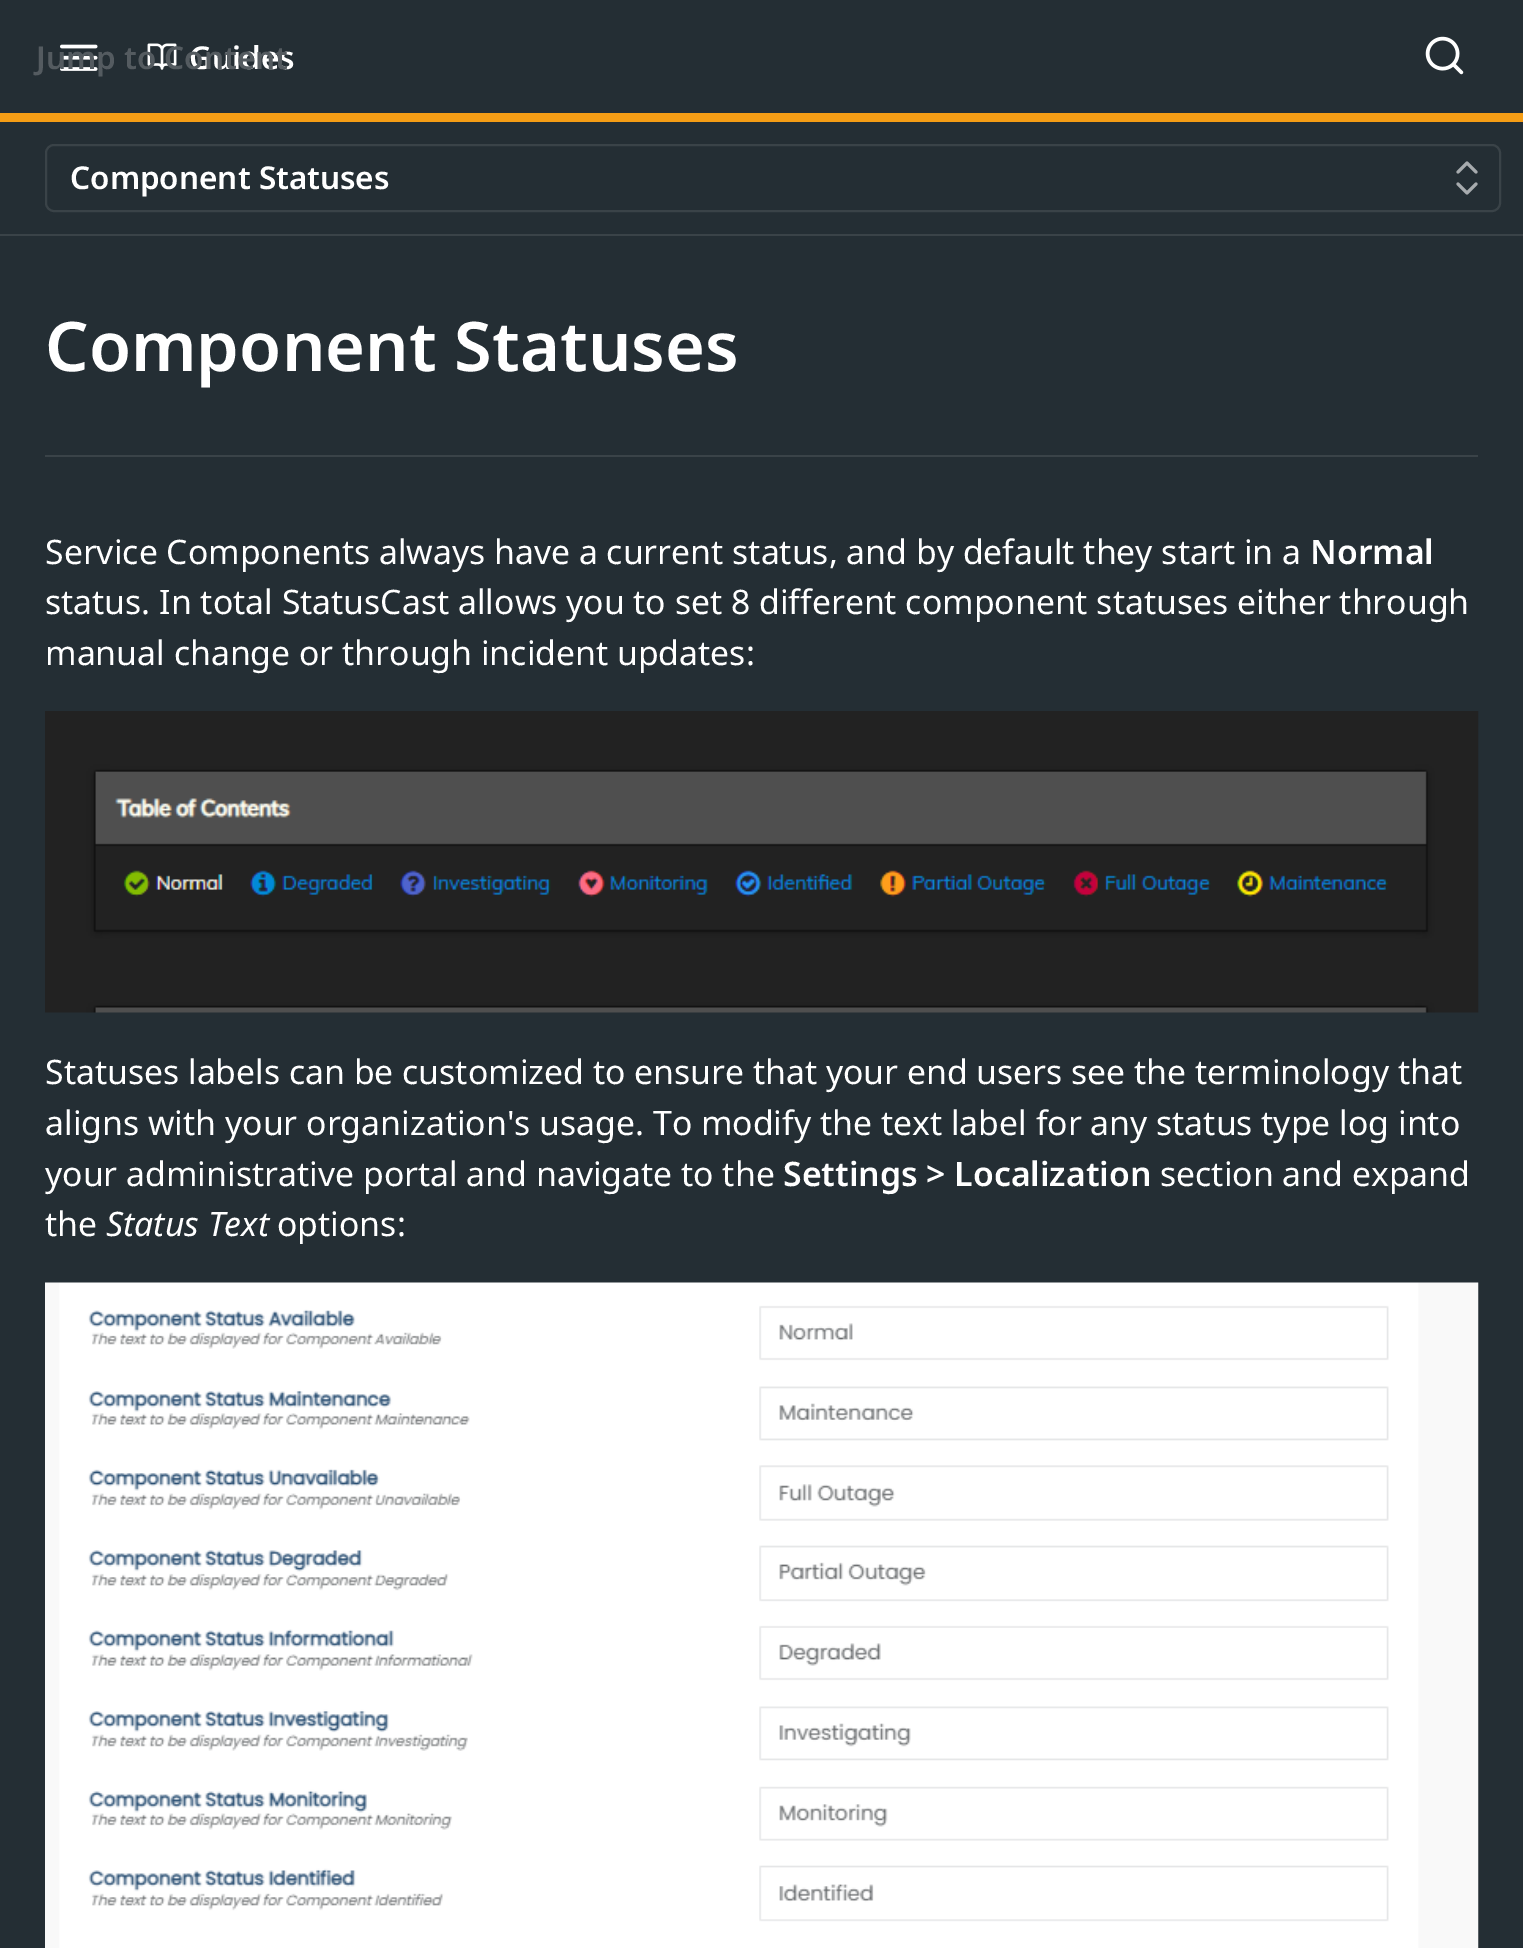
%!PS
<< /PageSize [1523 1948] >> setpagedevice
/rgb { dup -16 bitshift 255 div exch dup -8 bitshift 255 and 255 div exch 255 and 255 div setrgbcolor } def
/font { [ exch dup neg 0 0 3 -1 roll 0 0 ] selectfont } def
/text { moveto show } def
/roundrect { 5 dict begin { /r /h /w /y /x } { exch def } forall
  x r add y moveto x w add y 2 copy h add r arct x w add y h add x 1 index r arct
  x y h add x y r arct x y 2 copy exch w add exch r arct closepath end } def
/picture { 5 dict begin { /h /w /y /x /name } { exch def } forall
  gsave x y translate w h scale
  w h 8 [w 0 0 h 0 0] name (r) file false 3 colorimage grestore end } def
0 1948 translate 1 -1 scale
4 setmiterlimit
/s1 { /NotoSans-SemiBold 31.5 font 16#FFFFFF rgb } def
/s2 { /NotoSans-SemiBold 31.5 font 16#545B60 rgb } def
/s3 { /NotoSans-SemiBold 68.4 font 16#FFFFFF rgb } def
/s4 { /NotoSans-Regular 33.75 font 16#FFFFFF rgb } def
/s5 { /NotoSans-SemiBold 33.75 font 16#FFFFFF rgb } def
/s6 { /NotoSans-Italic 33.75 font 16#FFFFFF rgb } def
16#242E34 rgb
0 0 1523 1948 rectfill
16#3A4348 rgb
0 234 1523 2 rectfill
16#F59D15 rgb
0 113 1523 9 rectfill
(pic1.raw) 60 44 38 27 picture
(pic2.raw) 147 43 30 27 picture
s1
(Guides) 189 69 text
(pic3.raw) 1425 36 39 39 picture
s2
(Jump to Content) 36 69 text
16#3A4348 rgb
2 setlinewidth
46 145 1454 66 8 roundrect stroke
s1
(Component Statuses) 70 189 text
16#A7ABAE rgb
3 setlinewidth
1 setlinecap
1 setlinejoin
1458 184 moveto 1467 193 lineto 1476 184 lineto 1476 172 moveto 1467 163 lineto 1458 172 lineto stroke
16#3A4348 rgb
45 455 1433 2 rectfill
s3
(Component Statuses) 45 371 text
s4
(Service Components always have a current status, and by default they start in a) 45 564 text
s5
(Normal) 1310 564 text
s4
(status. In total StatusCast allows you to set 8 different component statuses either through) 45 614 text
(manual change or through incident updates:) 45 665 text
(pic4.raw) 45 711 1434 302 picture
(Statuses labels can be customized to ensure that your end users see the terminology that) 45 1084 text
(aligns with your organization's usage. To modify the text label for any status type log into) 45 1135 text
(your administrative portal and navigate to the) 45 1186 text
s5
(Settings > Localization) 783 1186 text
s4
(section and expand) 1160 1186 text
(the) 45 1236 text
s6
(Status Text) 106 1236 text
s4
(options:) 277 1236 text
(pic5.raw) 45 1282 1434 666 picture
showpage
